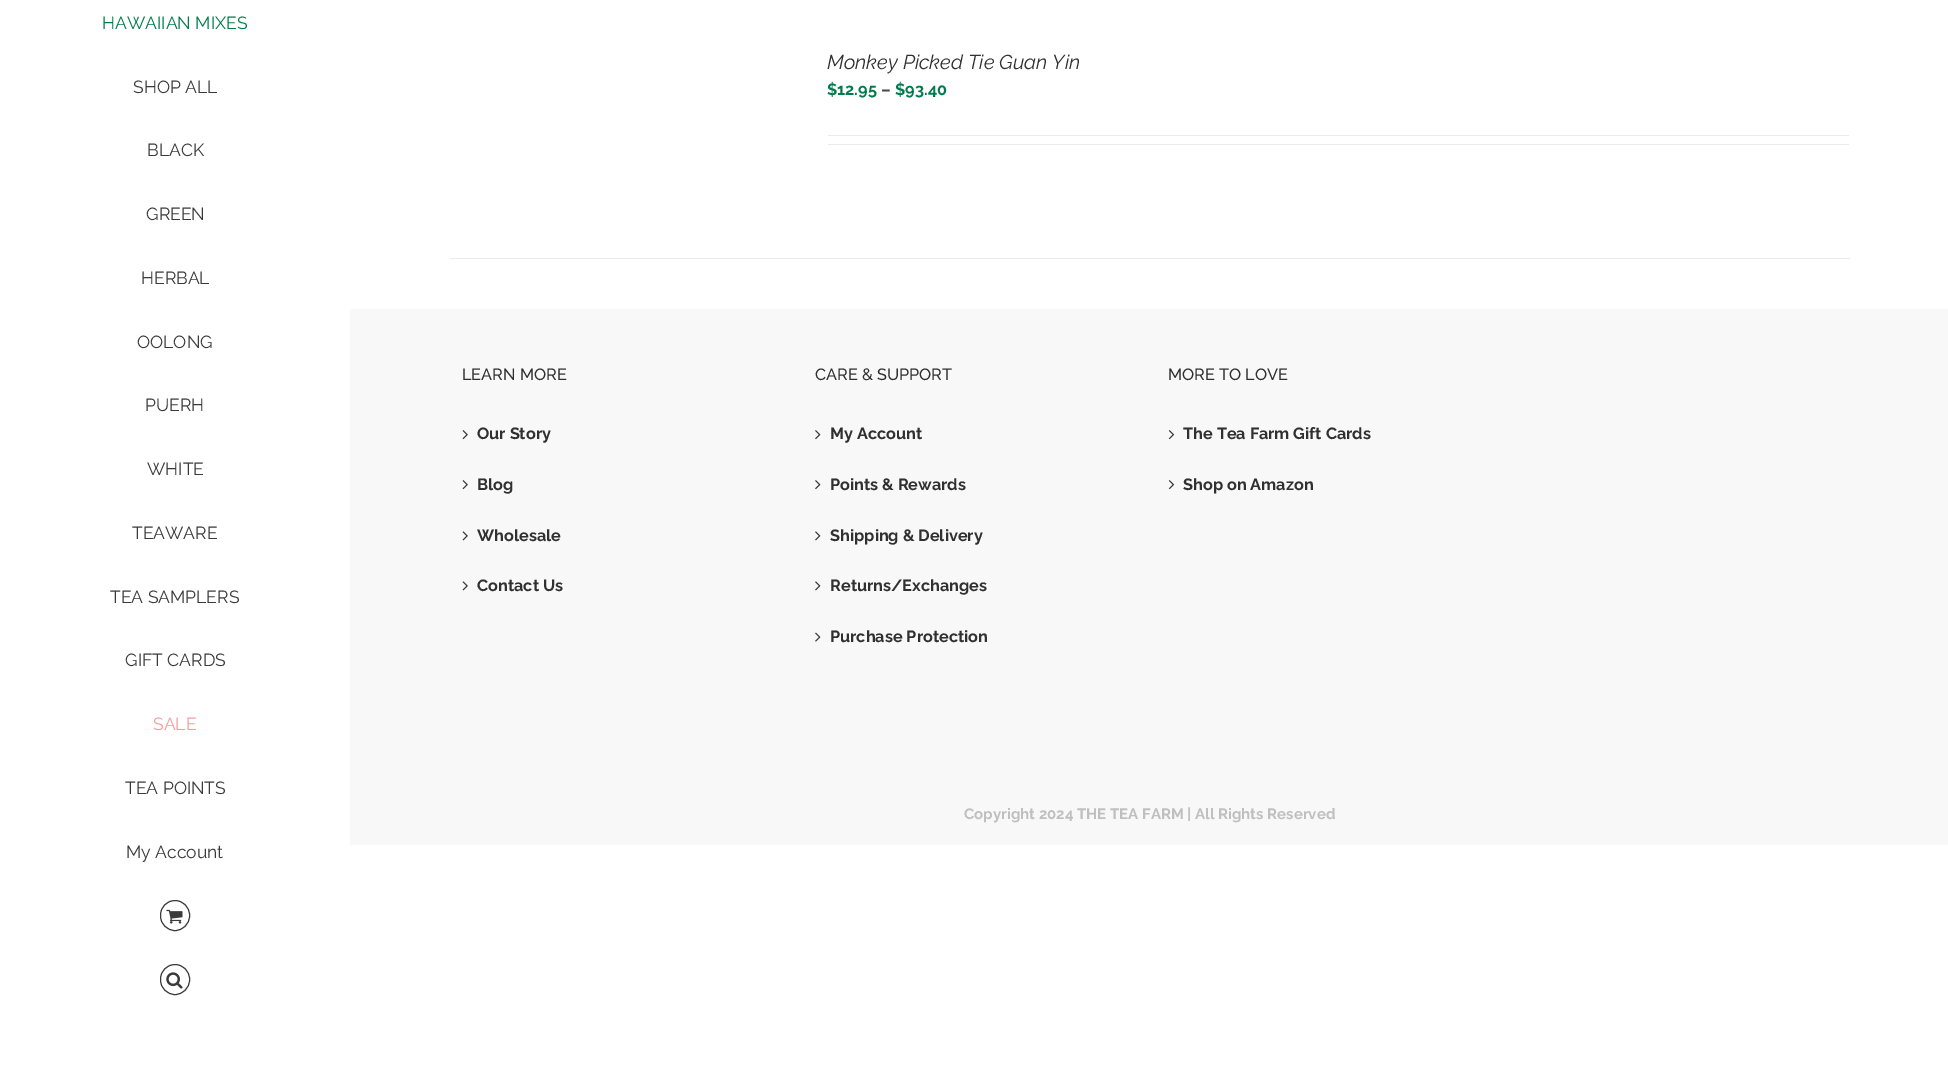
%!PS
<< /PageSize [1948 1077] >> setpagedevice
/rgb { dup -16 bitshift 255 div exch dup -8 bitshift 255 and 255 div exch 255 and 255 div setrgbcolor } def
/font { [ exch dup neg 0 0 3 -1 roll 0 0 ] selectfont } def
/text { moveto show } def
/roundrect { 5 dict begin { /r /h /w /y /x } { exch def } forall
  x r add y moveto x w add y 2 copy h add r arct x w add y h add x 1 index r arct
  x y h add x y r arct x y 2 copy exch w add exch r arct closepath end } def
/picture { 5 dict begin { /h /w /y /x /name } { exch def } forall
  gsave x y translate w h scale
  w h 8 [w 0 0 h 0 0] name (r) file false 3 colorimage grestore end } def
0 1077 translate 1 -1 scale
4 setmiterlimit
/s1 { /Raleway-Regular 17.5 font 16#007C4C rgb } def
/s2 { /Raleway-Regular 17.5 font 16#3A3A3A rgb } def
/s3 { /Raleway-Regular 17.5 font 16#F49C9B rgb } def
/s4 { /Raleway-Italic 20 font 16#303030 rgb } def
/s5 { /Raleway-Bold 16.25 font 16#007C4C rgb } def
/s6 { /Raleway-Bold 16.25 font 16#4C4C4C rgb } def
/s7 { /Raleway-Medium 16.25 font 16#303030 rgb } def
/s8 { /Raleway-Bold 16.25 font 16#303030 rgb } def
/s9 { /Raleway-Bold 15 font 16#BFBFBF rgb } def
16#FFFFFF rgb
0 0 1948 1077 rectfill
s1
(HAWAIIAN MIXES) 102 29 text
s2
(SHOP ALL) 133 93 text
(BLACK) 147 156 text
(GREEN) 146 220 text
(HERBAL) 141 284 text
(OOLONG) 137 348 text
(PUERH) 145 411 text
(WHITE) 147 475 text
(TEAWARE) 132 539 text
(TEA SAMPLERS) 110 603 text
(GIFT CARDS) 125 666 text
s3
(SALE) 153 730 text
s2
(TEA POINTS) 125 794 text
(My Account) 126 858 text
160.5 900.5 29 30 14.5 roundrect stroke
(pic1.raw) 166 909 17 15 picture
160.5 964.5 29 30 14.5 roundrect stroke
(pic2.raw) 166 972 17 17 picture
16#EBEAEA rgb
450 258 1400 1 rectfill
s4
(Monkey Picked Tie Guan Yin) 827 69 text
s5
($12.95) 827 95 text
s6
(–) 881 95 text
s5
($93.40) 895 95 text
16#EBEAEA rgb
828 135 1021 1 rectfill
828 144 1021 1 rectfill
16#F8F8F8 rgb
350 309 1598 536 rectfill
s7
(LEARN MORE) 462 380 text
(pic3.raw) 462 430 6 10 picture
s8
(Our Story) 477 439 text
(pic3.raw) 462 480 6 10 picture
(Blog) 477 490 text
(pic4.raw) 462 531 6 10 picture
(Wholesale) 477 541 text
(pic4.raw) 462 581 6 10 picture
(Contact Us) 477 591 text
s7
(CARE & SUPPORT) 815 380 text
(pic5.raw) 815 430 6 10 picture
s8
(My Account) 830 439 text
(pic5.raw) 815 480 6 10 picture
(Points & Rewards) 830 490 text
(pic6.raw) 815 531 6 10 picture
(Shipping & Delivery) 830 541 text
(pic6.raw) 815 581 6 10 picture
(Returns/Exchanges) 830 591 text
(pic7.raw) 815 632 6 10 picture
(Purchase Protection) 830 642 text
s7
(MORE TO LOVE) 1168 380 text
(pic8.raw) 1168 430 7 10 picture
s8
(The Tea Farm Gift Cards) 1183 439 text
(pic8.raw) 1168 480 7 10 picture
(Shop on Amazon) 1183 490 text
s9
(Copyright 2024 THE TEA FARM | All Rights Reserved) 964 819 text
showpage
